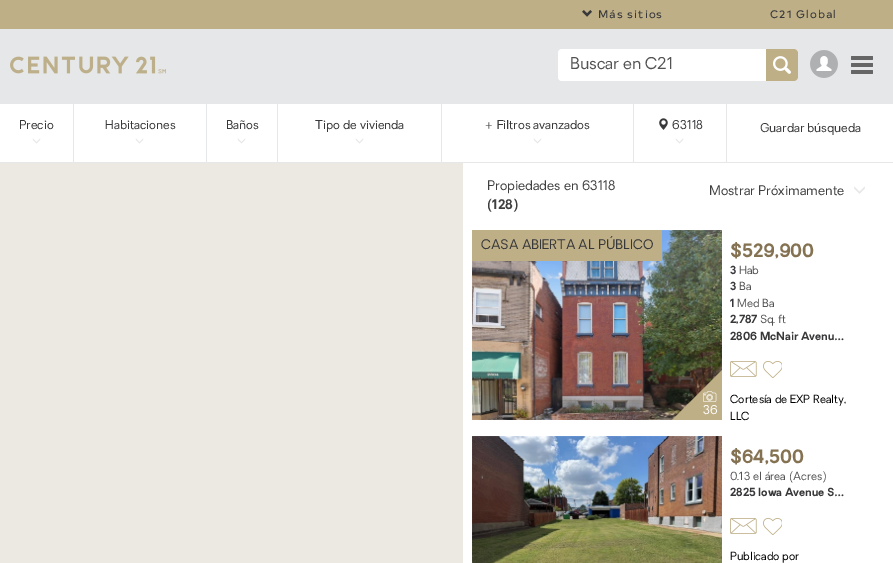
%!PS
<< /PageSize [893 563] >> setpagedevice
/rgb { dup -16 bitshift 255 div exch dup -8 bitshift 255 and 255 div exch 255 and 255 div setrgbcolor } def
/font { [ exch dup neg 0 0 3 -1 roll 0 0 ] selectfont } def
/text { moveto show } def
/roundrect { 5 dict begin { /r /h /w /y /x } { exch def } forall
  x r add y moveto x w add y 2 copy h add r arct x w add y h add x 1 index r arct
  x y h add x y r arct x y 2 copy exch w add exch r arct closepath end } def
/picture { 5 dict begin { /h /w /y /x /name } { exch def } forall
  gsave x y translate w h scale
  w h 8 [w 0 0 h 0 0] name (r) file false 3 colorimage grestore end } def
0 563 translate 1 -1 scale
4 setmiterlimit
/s1 { /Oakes-Regular 16 font 16#535353 rgb } def
/s2 { /Oakes-Regular 12 font 16#38383A rgb } def
/s3 { /Oakes-Regular 13 font 16#3F3F3F rgb } def
/s4 { /Oakes-Bold 13 font 16#3F3F3F rgb } def
/s5 { /Oakes-Regular 13 font 16#38383A rgb } def
/s6 { /Oakes-Regular 12 font 16#FFFFFF rgb } def
/s7 { /Oakes-Bold 18 font 16#847252 rgb } def
/s8 { /Oakes-Bold 11 font 16#38383A rgb } def
/s9 { /Oakes-Regular 11 font 16#535353 rgb } def
/s10 { /Oakes-Regular 11 font 16#000000 rgb } def
16#FFFFFF rgb
0 0 893 563 rectfill
16#BEAF87 rgb
0 0 893 29 rectfill
(pic1.raw) 582 10 10 7 picture
/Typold-Regular 11 font
16#38383A rgb
598 18 moveto 1 0 (Más sitios) ashow
770 18 moveto 1 0 (C21 Global) ashow
16#E6E7E8 rgb
0 29 893 75 rectfill
(pic2.raw) 10 56 156 18 picture
16#FFFFFF rgb
558 49 240 32 4 roundrect fill
gsave
570 57 172 16 rectclip
s1
(Buscar en C21) 570 69 text
grestore
16#BEAF87 rgb
766 49 moveto 794 49 lineto 796 49 798 51 798 53 curveto 798 77 lineto 798 79 796 81 794 81 curveto 766 81 lineto closepath fill
(pic3.raw) 773 56 18 18 picture
(pic4.raw) 810 50 28 28 picture
16#666666 rgb
851 56 22 4 1 roundrect fill
851 63 22 4 1 roundrect fill
851 70 22 4 1 roundrect fill
16#E6E7E8 rgb
0 162 893 1 rectfill
s2
(Precio) 19 129 text
(pic5.raw) 32 138 9 6 picture
16#E6E7E8 rgb
73 104 1 59 rectfill
s2
(Habitaciones) 105 129 text
(pic5.raw) 135 138 9 6 picture
16#E6E7E8 rgb
206 104 1 59 rectfill
s2
(Baños) 226 129 text
(pic5.raw) 237 138 9 6 picture
16#E6E7E8 rgb
277 104 1 59 rectfill
s2
(Tipo de vivienda) 315 129 text
(pic5.raw) 355 138 9 6 picture
16#E6E7E8 rgb
441 104 1 59 rectfill
s2
(+ Filtros avanzados) 484 129 text
(pic5.raw) 533 138 9 6 picture
16#E6E7E8 rgb
633 104 1 59 rectfill
(pic6.raw) 659 118 9 12 picture
s2
(63118) 672 129 text
(pic5.raw) 675 138 9 6 picture
16#E6E7E8 rgb
726 104 1 59 rectfill
s2
(Guardar búsqueda) 760 132 text
16#ECE9E2 rgb
0 163 463 400 rectfill
s3
(Propiedades en 63118) 487 190 text
s4
(\(128\)) 487 209 text
s3
(Mostrar Próximamente) 709 195 text
(pic7.raw) 854 186 11 8 picture
(pic8.raw) 472 230 250 190 picture
16#BEAF87 rgb
472 230 190 31 rectfill
s5
(CASA ABIERTA AL PÚBLICO) 481 249 text
16#BEAF87 rgb
722 420 moveto 672 420 lineto 722 370 lineto closepath fill
(pic9.raw) 703 391 14 11 picture
s6
(36) 703 414 text
s7
($529,900) 730 257 text
s8
(3) 730 274 text
s9
(Hab) 739 274 text
s8
(3) 730 290 text
s9
(Ba) 739 290 text
s8
(1) 730 307 text
s9
(Med Ba) 737 307 text
s8
(2,787) 730 323 text
s9
(Sq. ft) 760 323 text
s8
(2806 McNair Avenu…) 730 340 text
(pic10.raw) 730 361 27 16 picture
(pic11.raw) 763 361 19 17 picture
s10
(Cortesía de EXP Realty,) 730 403 text
(LLC) 730 420 text
(pic12.raw) 472 436 250 127 picture
s7
($64,500) 730 463 text
s9
(0.13 el área \(Acres\)) 730 480 text
s8
(2825 Iowa Avenue S…) 730 496 text
(pic10.raw) 730 518 27 16 picture
(pic11.raw) 763 518 19 17 picture
s10
(Publicado por) 730 560 text
showpage
